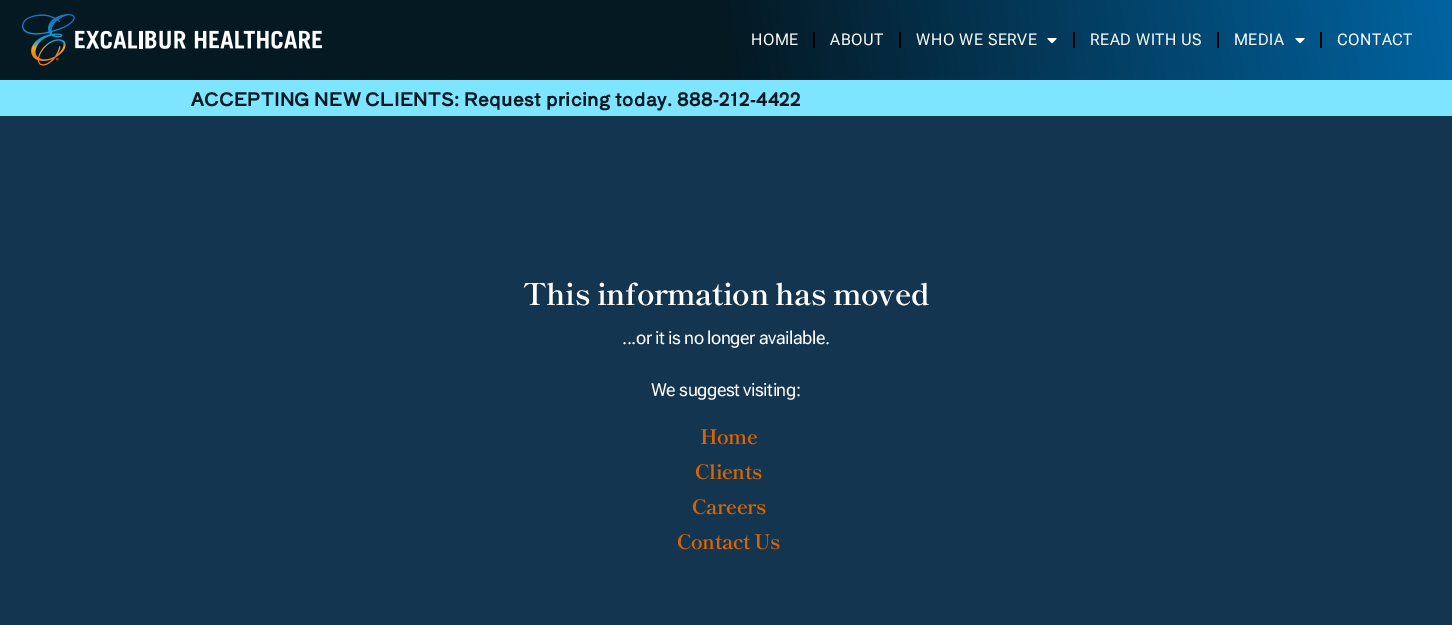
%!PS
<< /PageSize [1452 625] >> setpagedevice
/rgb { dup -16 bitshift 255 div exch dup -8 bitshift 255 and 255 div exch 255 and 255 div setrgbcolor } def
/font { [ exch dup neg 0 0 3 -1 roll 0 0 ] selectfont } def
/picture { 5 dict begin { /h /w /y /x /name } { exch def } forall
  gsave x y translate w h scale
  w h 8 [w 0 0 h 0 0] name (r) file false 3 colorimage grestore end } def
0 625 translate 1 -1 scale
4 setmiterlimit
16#13354F rgb
0 0 1452 625 rectfill
gsave 0 0 moveto 1452 0 lineto 1452 80 lineto 0 80 lineto closepath clip newpath
<< /ShadingType 2 /ColorSpace /DeviceRGB /Coords [15 165 1437 -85] /Extend [true true] /Function << /FunctionType 3 /Domain [0 1] /Functions [<< /FunctionType 2 /Domain [0 1] /C0 [0.02 0.098 0.137] /C1 [0.02 0.098 0.137] /N 1 >> << /FunctionType 2 /Domain [0 1] /C0 [0.02 0.098 0.137] /C1 [0 0.392 0.631] /N 1 >>] /Bounds [0.5] /Encode [0 1 0 1] >> >> shfill grestore
(pic1.raw) 22 14 300 52 picture
/RobotoFlex-Regular 16 font
16#FFFFFF rgb
751 45 moveto 0.5 0 (HOME) ashow
16#000000 rgb
813 32 2 16 rectfill
16#FFFFFF rgb
830 45 moveto 0.5 0 (ABOUT) ashow
16#000000 rgb
899 32 2 16 rectfill
16#FFFFFF rgb
916 45 moveto 0.5 0 (WHO WE SERVE) ashow
(pic2.raw) 1047 38 10 6 picture
16#000000 rgb
1073 32 2 16 rectfill
16#FFFFFF rgb
1090 45 moveto 0.5 0 (READ WITH US) ashow
16#000000 rgb
1217 32 2 16 rectfill
16#FFFFFF rgb
1234 45 moveto 0.5 0 (MEDIA) ashow
(pic3.raw) 1295 38 10 6 picture
16#000000 rgb
1320 32 2 16 rectfill
16#FFFFFF rgb
1337 45 moveto 0.5 0 (CONTACT) ashow
16#7DE5FF rgb
0 80 1452 36 rectfill
/ShipporiAntique-Bold 18 font
16#051923 rgb
191 106 moveto 0.5 0 (ACCEPTING NEW CLIENTS: Request pricing today. 888-212-4422) ashow
/ShipporiMincho-Bold 30 font
16#FFFFFF rgb
523 305 moveto -0.5 0 (This information has moved) ashow
/RobotoFlex-Regular 18 font
622 344 moveto -0.5 0 (...or it is no longer available.) ashow
651 396 moveto -0.5 0 (We suggest visiting:) ashow
/ShipporiMincho-Bold 20 font
16#D96400 rgb
700 444 moveto -0.5 0 (Home) ashow
695 479 moveto -0.5 0 (Clients) ashow
692 514 moveto -0.5 0 (Careers) ashow
677 549 moveto -0.5 0 (Contact Us) ashow
showpage
